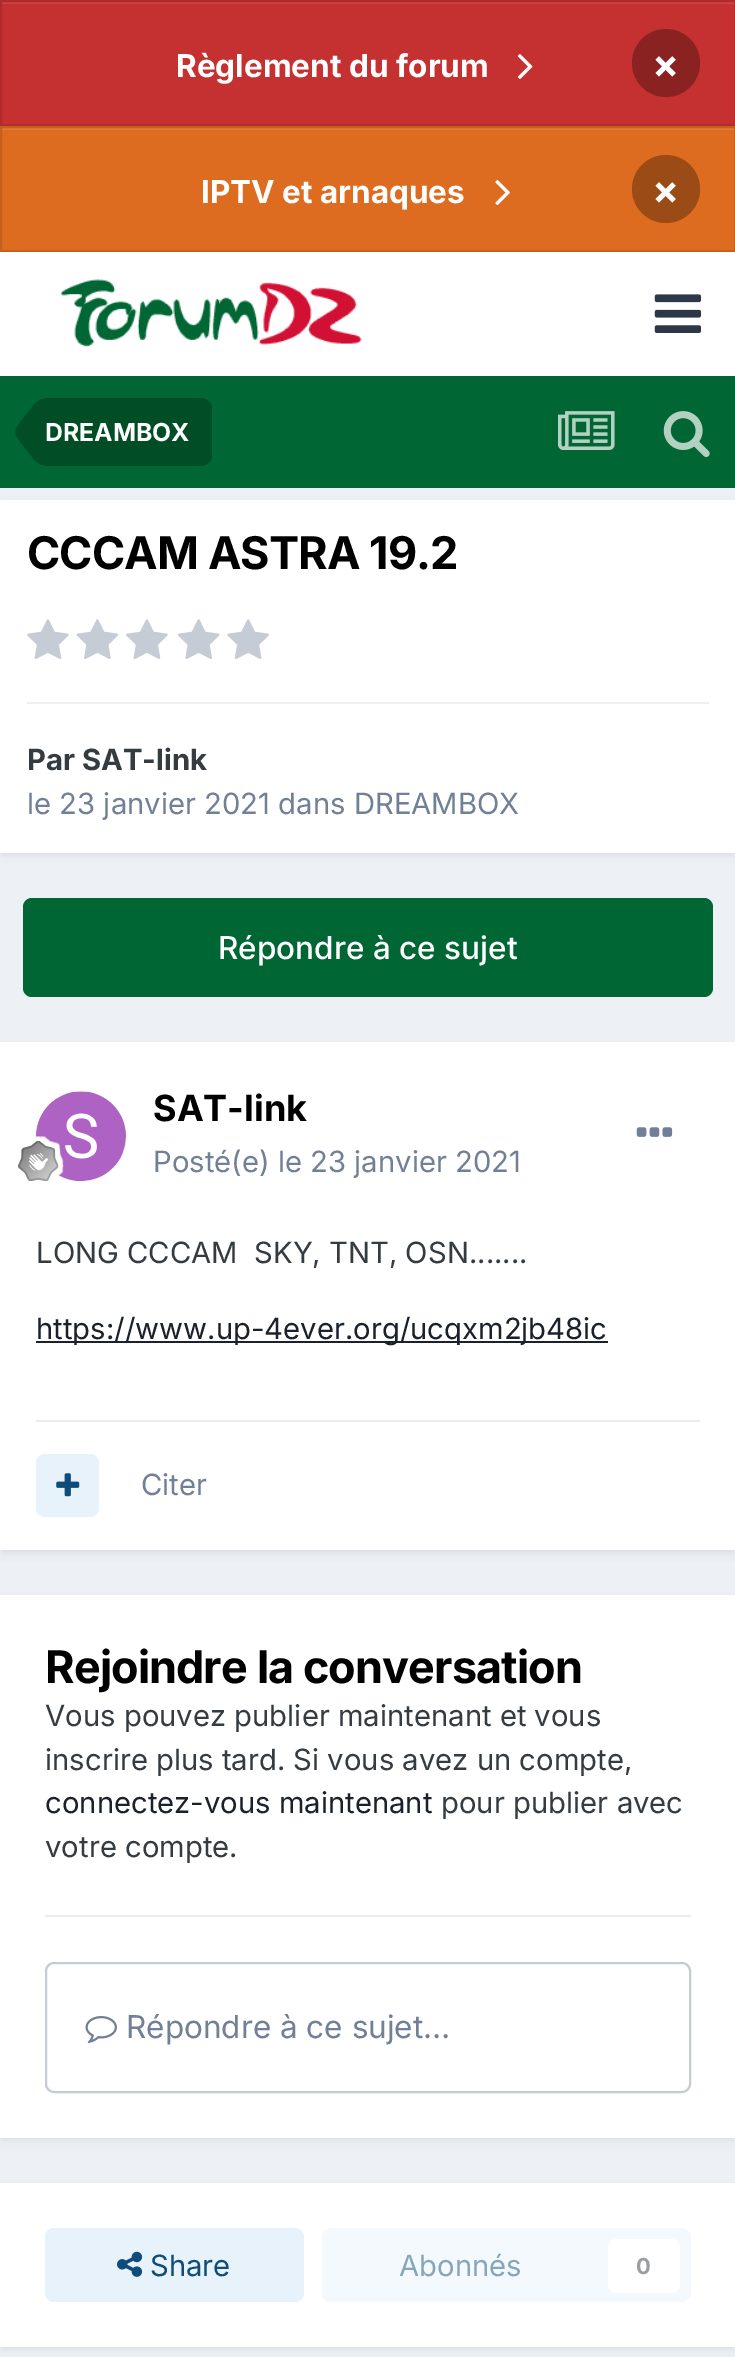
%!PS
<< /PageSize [735 2357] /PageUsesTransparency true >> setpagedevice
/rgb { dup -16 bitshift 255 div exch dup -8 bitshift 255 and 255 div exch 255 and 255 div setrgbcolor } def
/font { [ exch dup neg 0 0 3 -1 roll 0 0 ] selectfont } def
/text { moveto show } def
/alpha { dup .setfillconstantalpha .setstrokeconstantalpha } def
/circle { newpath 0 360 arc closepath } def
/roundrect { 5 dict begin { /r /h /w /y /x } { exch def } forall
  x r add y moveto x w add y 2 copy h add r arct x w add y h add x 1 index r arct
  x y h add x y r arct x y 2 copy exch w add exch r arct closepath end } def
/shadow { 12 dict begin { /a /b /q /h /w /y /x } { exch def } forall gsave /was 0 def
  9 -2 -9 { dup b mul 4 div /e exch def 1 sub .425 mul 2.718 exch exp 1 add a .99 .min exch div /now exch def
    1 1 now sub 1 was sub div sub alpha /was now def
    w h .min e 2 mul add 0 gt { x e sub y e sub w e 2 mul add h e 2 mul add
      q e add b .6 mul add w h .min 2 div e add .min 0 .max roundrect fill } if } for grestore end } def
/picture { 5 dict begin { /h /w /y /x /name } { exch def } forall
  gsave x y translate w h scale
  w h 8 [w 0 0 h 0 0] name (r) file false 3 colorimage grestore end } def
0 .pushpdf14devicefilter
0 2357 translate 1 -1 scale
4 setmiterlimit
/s1 { /Inter-Bold 31.5 font 16#FFFFFF rgb } def
/s2 { /Inter-Bold 40 font 16#FFFFFF rgb } def
/s3 { /Inter-Bold 24.75 font 16#FFFFFF rgb } def
/s4 { /Inter-Bold 29.25 font 16#353C41 rgb } def
/s5 { /Inter-Regular 29.25 font 16#718096 rgb } def
/s6 { /Inter-Medium 31.5 font 16#FFFFFF rgb } def
/s7 { /Inter-Bold 36 font 16#000000 rgb } def
/s8 { /Inter-Regular 29.25 font 16#353C41 rgb } def
/s9 { /Inter-Regular 29.25 font 16#1A202C rgb } def
/s10 { /Inter-Regular 31.5 font 16#718096 rgb } def
/s11 { /Inter-Regular 29.25 font 16#0E4C79 rgb } def
/s12 { /Inter-Regular 29.25 font 16#87A6BC rgb } def
/s13 { /Inter-Bold 22 font 16#9A9EA0 rgb } def
16#EDF0F4 rgb
0 0 735 2357 rectfill
16#C53030 rgb
2 4 732 120 rectfill
16#CB4545 rgb
2 2 732 2 rectfill
16#B12B2B rgb
2 setlinewidth
1 1 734 124 rectstroke
s1
(Règlement du forum) 176 77 text
(pic1.raw) 517 54 16 25 picture
16#8A2222 rgb
666 63 34 circle fill
s2
(×) 652 78 text
16#DD6B20 rgb
2 130 732 120 rectfill
16#E07A36 rgb
2 128 732 2 rectfill
16#C7601D rgb
1 127 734 124 rectstroke
s1
(IPTV et arnaques) 201 203 text
(pic2.raw) 495 180 15 25 picture
16#9B4B16 rgb
666 189 34 circle fill
s2
(×) 652 204 text
0 252 735 124 rectfill
(pic3.raw) 60 279 302 68 picture
(pic4.raw) 654 294 48 39 picture
16#006633 rgb
0 376 735 112 rectfill
16#004D26 rgb
45 398 moveto 201 398 lineto 207 398 212 403 212 409 curveto 212 455 lineto 212 461 207 466 201 466 curveto 45 466 lineto closepath fill
45 432 moveto 45 465 lineto 40 465 35.5 462.5 32 457 curveto 21.5 443.5 lineto 16 435.5 lineto 15.5 434 15.5 433 15.5 432 curveto closepath fill
45 432 moveto 15.5 432 lineto 15.5 431 15.5 430 16 428.5 curveto 21.5 420.5 lineto 32 407 lineto 35.5 401.5 40 399 45 399 curveto closepath fill
s3
(DREAMBOX) 45 441 text
(pic5.raw) 558 411 57 39 picture
(pic6.raw) 663 411 47 46 picture
16#2D3748 rgb
2 506 732 349 0 4.5 0.1 shadow
16#FFFFFF rgb
0 500 735 353 rectfill
/Inter-Bold 45 font
16#000000 rgb
27 569 moveto -0.9 0 (CCCAM ASTRA 19.2) ashow
(pic7.raw) 27 619 42 40 picture
(pic8.raw) 76 619 43 40 picture
(pic7.raw) 126 619 42 40 picture
(pic9.raw) 177 619 43 40 picture
(pic10.raw) 227 619 42 40 picture
16#EFEFF0 rgb
27 702 682 2 rectfill
s4
(Par SAT-link) 27 770 text
s5
(le 23 janvier 2021 dans DREAMBOX) 27 814 text
16#006633 rgb
23 898 690 99 9 roundrect fill
s6
(Répondre à ce sujet) 218 959 text
16#2D3748 rgb
2 1049 732 504 0 4.5 0.1 shadow
16#FFFFFF rgb
0 1042 735 508 rectfill
(pic11.raw) 36 1091 90 90 picture
(pic12.raw) 18 1136 46 45 picture
s7
(SAT-link) 153 1121 text
s5
(Posté\(e\) le 23 janvier 2021) 153 1172 text
(pic13.raw) 636 1127 37 10 picture
s8
(LONG CCCAM  SKY, TNT, OSN.......) 36 1263 text
16#1A202C rgb
36 1341 572 2 rectfill
(https://www.up-4ever.org/ucqxm2jb48ic) 36 1339 text
16#EBECEC rgb
36 1420 664 2 rectfill
16#E8F2FA rgb
36 1454 63 63 9 roundrect fill
(pic14.raw) 56 1473 24 24 picture
s5
(Citer) 141 1495 text
16#2D3748 rgb
2 1602 732 538 0 4.5 0.1 shadow
16#FFFFFF rgb
0 1595 735 543 rectfill
16#EAECEF rgb
45 1915 646 2 rectfill
/Inter-Bold 45 font
16#000000 rgb
45 1683 moveto -0.9 0 (Rejoindre la conversation) ashow
s8
(Vous pouvez publier maintenant et vous) 45 1726 text
(inscrire plus tard. Si vous avez un compte,) 45 1770 text
s9
(connectez-vous maintenant) 45 1813 text
s8
(pour publier avec) 441 1813 text
(votre compte.) 45 1857 text
16#C6CCD5 rgb
46 1963 644 129 8 roundrect stroke
(pic15.raw) 85 2016 32 27 picture
s10
(Répondre à ce sujet…) 126 2038 text
16#2D3748 rgb
2 2189 732 160 0 4.5 0.1 shadow
16#FFFFFF rgb
0 2183 735 164 rectfill
16#E8F2FA rgb
45 2228 259 74 9 roundrect fill
(pic16.raw) 117 2251 26 26 picture
s11
(Share) 150 2276 text
16#F4F9FD rgb
322 2228 369 74 9 roundrect fill
s12
(Abonnés) 399 2276 text
16#FFFFFF rgb
608 2239 72 54 9 roundrect fill
s13
(0) 636 2274 text
.poppdf14devicefilter showpage
